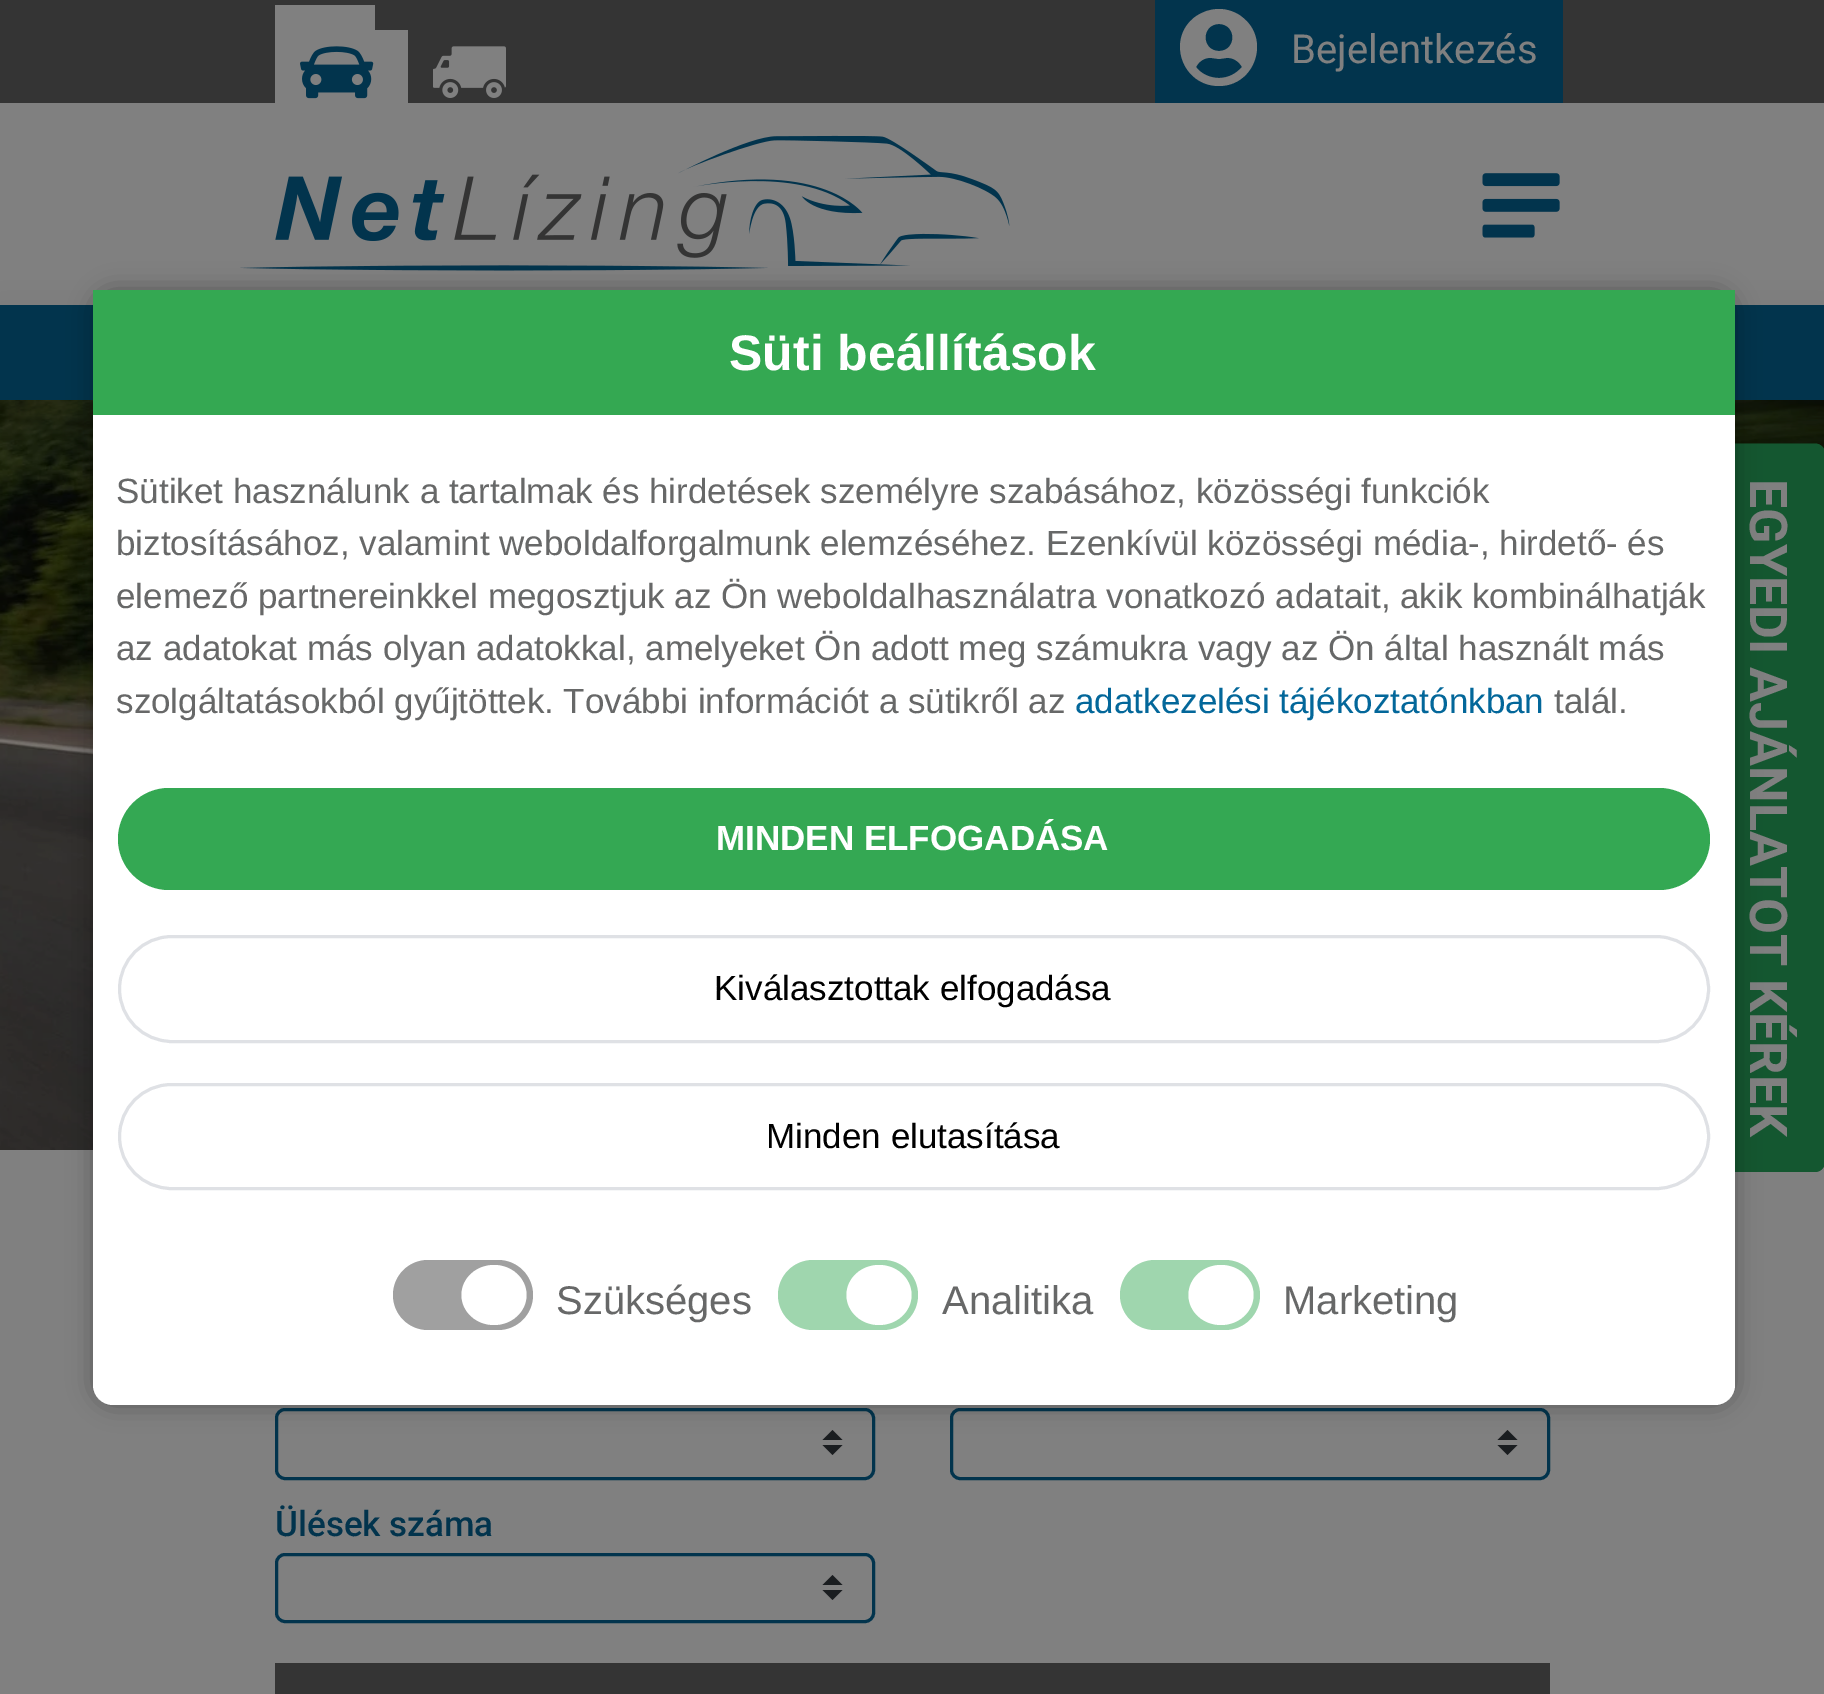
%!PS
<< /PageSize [1824 1694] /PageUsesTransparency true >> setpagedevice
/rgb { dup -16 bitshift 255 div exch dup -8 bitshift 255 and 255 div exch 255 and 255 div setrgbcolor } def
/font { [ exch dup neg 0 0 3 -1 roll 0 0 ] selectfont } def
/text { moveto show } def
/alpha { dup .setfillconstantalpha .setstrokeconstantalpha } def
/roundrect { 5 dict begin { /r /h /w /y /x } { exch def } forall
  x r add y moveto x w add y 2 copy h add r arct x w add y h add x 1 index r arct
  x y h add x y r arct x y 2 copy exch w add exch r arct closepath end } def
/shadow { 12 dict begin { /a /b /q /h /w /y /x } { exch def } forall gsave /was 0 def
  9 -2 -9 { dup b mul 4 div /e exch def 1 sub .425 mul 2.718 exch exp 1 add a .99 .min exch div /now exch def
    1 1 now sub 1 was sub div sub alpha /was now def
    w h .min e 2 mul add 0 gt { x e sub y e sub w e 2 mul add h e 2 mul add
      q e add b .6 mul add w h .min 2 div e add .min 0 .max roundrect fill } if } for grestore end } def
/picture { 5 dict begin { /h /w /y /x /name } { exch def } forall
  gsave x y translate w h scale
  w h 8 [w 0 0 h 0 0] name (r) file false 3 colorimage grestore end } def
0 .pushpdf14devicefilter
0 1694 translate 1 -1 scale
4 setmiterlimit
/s1 { /Roboto-Regular 40 font 16#808080 rgb } def
/s2 { /Roboto-Medium 35 font 16#02344D rgb } def
/s3 { /LiberationSans-Bold 50 font 16#FFFFFF rgb } def
/s4 { /LiberationSans-Regular 35 font 16#676868 rgb } def
/s5 { /LiberationSans-Regular 35 font 16#03679A rgb } def
/s6 { /LiberationSans-Bold 35 font 16#FFFFFF rgb } def
/s7 { /LiberationSans-Regular 35 font 16#000000 rgb } def
/s8 { /LiberationSans-Regular 40 font 16#676868 rgb } def
16#808080 rgb
0 0 1824 1694 rectfill
16#343434 rgb
0 0 1824 103 rectfill
16#808080 rgb
275 5 100 98 rectfill
375 30 33 73 rectfill
(pic1.raw) 300 46 74 53 picture
(pic2.raw) 433 46 73 52 picture
16#02344D rgb
1155 0 408 103 rectfill
16#808080 rgb
1219 9 moveto 1210 9 1202 12 1195 17 curveto 1166 39 1182 86 1219 86 curveto 1255 86 1271 39 1242 17 curveto 1236 12 1227 9 1219 9 curveto closepath 1219 24 moveto 1237 24 1237 51 1219 51 curveto 1201 51 1201 24 1219 24 curveto closepath 1219 78 moveto 1210 78 1201 74 1196 67 curveto 1199 61 1205 57 1212 58 curveto 1219 59 lineto 1226 58 lineto 1232 57 1239 61 1242 67 curveto 1236 74 1228 78 1219 78 curveto closepath fill
s1
(Bejelentkezés) 1291 63 text
(pic3.raw) 240 135 770 136 picture
(pic4.raw) 1482 173 78 65 picture
(pic5.raw) 0 400 1824 750 picture
16#000000 rgb
0 325 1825 95 0 20 0.15 shadow
16#02344D rgb
0 305 1824 95 rectfill
16#145730 rgb
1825 454 moveto 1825 1162 lineto 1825 1167 1821 1172 1815 1172 curveto 1717 1172 lineto 1712 1172 1707 1167 1707 1162 curveto 1707 454 lineto 1707 448 1712 444 1717 444 curveto 1815 444 lineto 1821 444 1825 448 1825 454 curveto closepath fill
5 setlinewidth
1822.5 454 moveto 1822.5 1161.5 lineto 1822.5 1165.5 1819 1169 1815 1169 curveto 1717 1169 lineto 1713 1169 1709.5 1165.5 1709.5 1161.5 curveto 1709.5 454 lineto 1709.5 449.5 1713 446 1717 446 curveto 1815 446 lineto 1819 446 1822.5 449.5 1822.5 454 curveto closepath stroke
/Roboto-Bold 52 font
16#808080 rgb
gsave 1750 479 translate 90 rotate 0 0 moveto (EGYEDI AJÁNLATOT KÉREK) show grestore
16#1A1D20 rgb
832.5 1430 moveto 822.5 1440 lineto 842.5 1440 lineto closepath 832.5 1455 moveto 822.5 1445 lineto 842.5 1445 lineto closepath fill
16#02344D rgb
3 setlinewidth
276.5 1409.5 597 69 8.5 roundrect stroke
16#1A1D20 rgb
1507.5 1430 moveto 1497.5 1440 lineto 1517.5 1440 lineto closepath 1507.5 1455 moveto 1497.5 1445 lineto 1517.5 1445 lineto closepath fill
16#02344D rgb
951.5 1409.5 597 69 8.5 roundrect stroke
s2
(Ülések száma) 275 1536 text
16#1A1D20 rgb
832.5 1575 moveto 822.5 1585 lineto 842.5 1585 lineto closepath 832.5 1600 moveto 822.5 1590 lineto 842.5 1590 lineto closepath fill
16#02344D rgb
276.5 1554.5 597 67 8.5 roundrect stroke
16#343434 rgb
275 1663 1275 31 rectfill
gsave
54 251 moveto 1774 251 lineto 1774 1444 lineto 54 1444 lineto closepath 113 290 moveto 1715 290 lineto 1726 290 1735 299 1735 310 curveto 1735 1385 lineto 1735 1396 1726 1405 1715 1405 curveto 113 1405 lineto 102 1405 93 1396 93 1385 curveto 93 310 lineto 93 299 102 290 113 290 curveto closepath eoclip newpath
16#000000 rgb
93 290 1642 1115 20 12.5 0.3 shadow
grestore
16#FFFFFF rgb
93 290 1642 1115 20 roundrect fill
16#34A852 rgb
93 290 1642 125 rectfill
s3
(Süti beállítások) 729 370 text
s4
(Sütiket használunk a tartalmak és hirdetések személyre szabásához, közösségi funkciók) 116 503 text
(biztosításához, valamint weboldalforgalmunk elemzéséhez. Ezenkívül közösségi média-, hirdető- és) 116 555 text
(elemező partnereinkkel megosztjuk az Ön weboldalhasználatra vonatkozó adatait, akik kombinálhatják) 116 608 text
(az adatokat más olyan adatokkal, amelyeket Ön adott meg számukra vagy az Ön által használt más) 116 660 text
(szolgáltatásokból gyűjtöttek. További információt a sütikről az) 116 713 text
s5
(adatkezelési tájékoztatónkban) 1075 713 text
s4
(talál.) 1554 713 text
16#34A853 rgb
118 788 1592 102 51 roundrect fill
s6
(MINDEN ELFOGADÁSA) 716 850 text
16#DFE1E5 rgb
119.5 936.5 1589 105 52.5 roundrect stroke
s7
(Kiválasztottak elfogadása) 714 1000 text
16#DFE1E5 rgb
119.5 1084.5 1589 104 52 roundrect stroke
s7
(Minden elutasítása) 766 1148 text
16#A0A0A0 rgb
393 1260 140 70 35 roundrect fill
16#FFFFFF rgb
494 1265 moveto 512 1265 526.5 1278.5 526.5 1295 curveto 526.5 1311.5 512 1325 494 1325 curveto 476 1325 461.5 1311.5 461.5 1295 curveto 461.5 1278.5 476 1265 494 1265 curveto closepath fill
s8
(Szükséges) 556 1314 text
16#9FD6AE rgb
778 1260 140 70 35 roundrect fill
16#FFFFFF rgb
879 1265 moveto 897 1265 911.5 1278.5 911.5 1295 curveto 911.5 1311.5 897 1325 879 1325 curveto 861 1325 846.5 1311.5 846.5 1295 curveto 846.5 1278.5 861 1265 879 1265 curveto closepath fill
s8
(Analitika) 942 1314 text
16#9FD6AE rgb
1120 1260 140 70 35 roundrect fill
16#FFFFFF rgb
1221 1265 moveto 1239 1265 1253.5 1278.5 1253.5 1295 curveto 1253.5 1311.5 1239 1325 1221 1325 curveto 1203 1325 1188.5 1311.5 1188.5 1295 curveto 1188.5 1278.5 1203 1265 1221 1265 curveto closepath fill
s8
(Marketing) 1283 1314 text
.poppdf14devicefilter showpage
